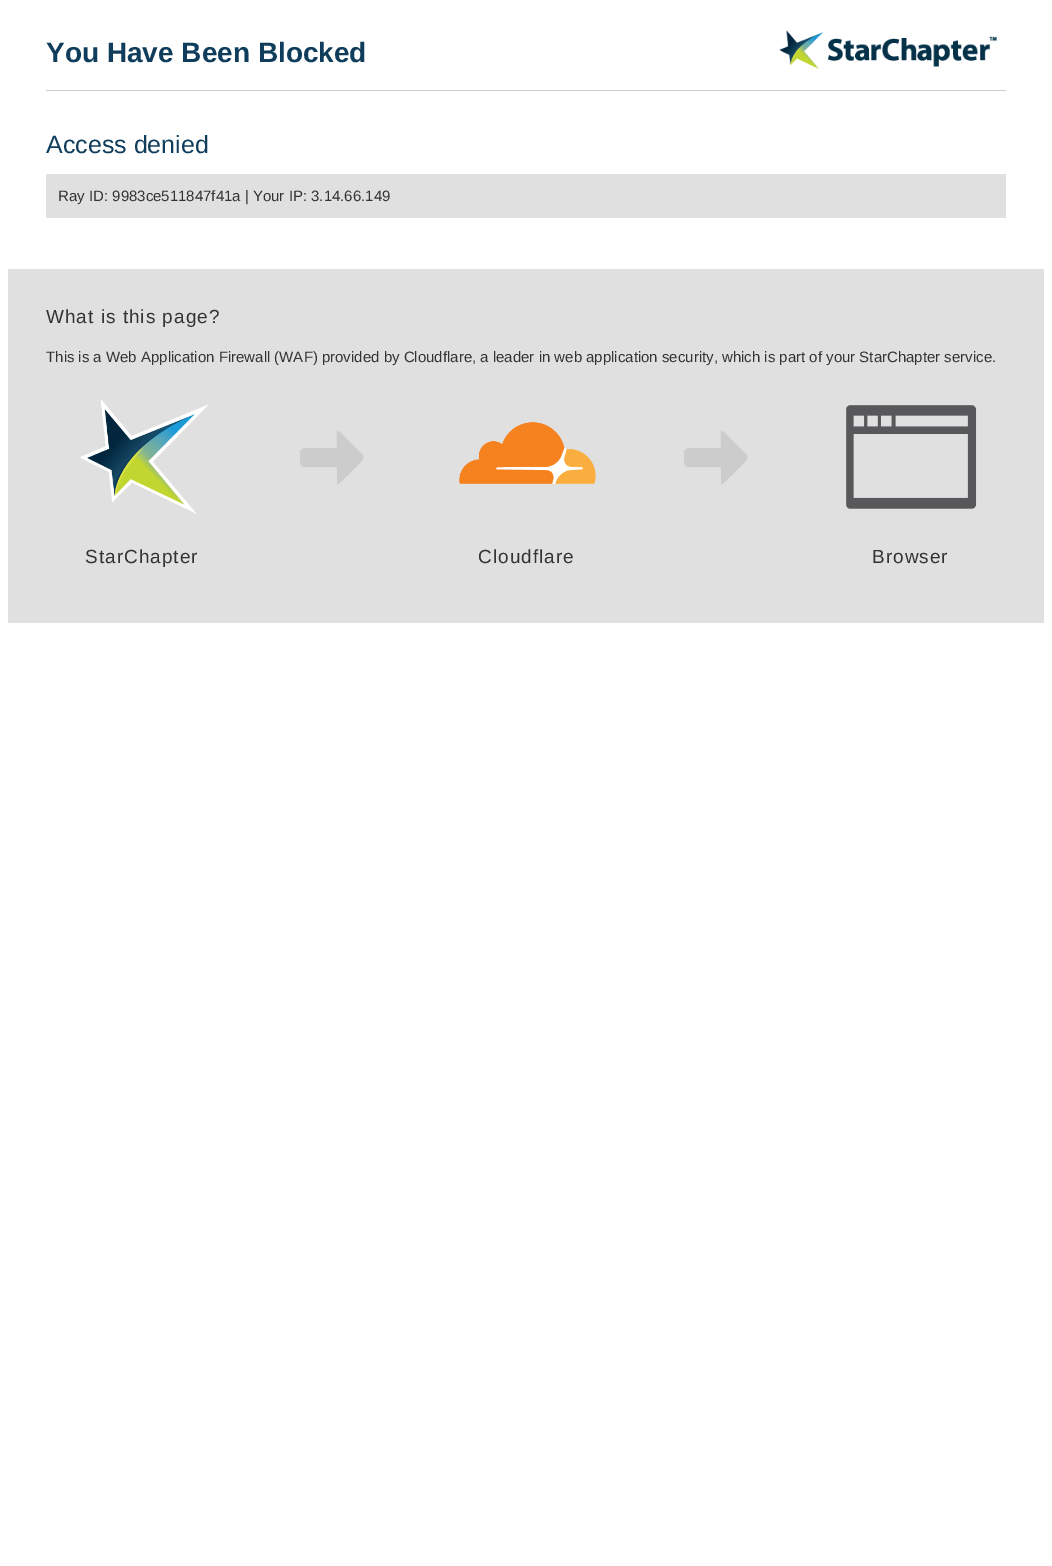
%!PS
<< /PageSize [1052 1566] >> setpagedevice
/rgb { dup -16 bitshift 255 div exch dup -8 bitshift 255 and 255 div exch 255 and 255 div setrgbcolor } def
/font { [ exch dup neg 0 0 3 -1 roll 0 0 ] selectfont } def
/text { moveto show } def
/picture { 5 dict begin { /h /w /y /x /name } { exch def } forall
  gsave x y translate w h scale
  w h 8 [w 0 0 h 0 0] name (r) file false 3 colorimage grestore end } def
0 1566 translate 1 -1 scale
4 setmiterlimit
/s1 { /LiberationSans-Bold 28 font 16#103D5B rgb } def
/s2 { /LiberationSans-Regular 25 font 16#103D5B rgb } def
/s3 { /LiberationSans-Regular 15 font 16#333333 rgb } def
16#FFFFFF rgb
0 0 1052 1566 rectfill
16#CCCCCC rgb
46 90 960 1 rectfill
s1
(You Have Been Blocked) 46 62 text
(pic1.raw) 779 30 218 39 picture
s2
(Access denied) 46 153 text
16#E0E0E0 rgb
46 174 960 44 rectfill
s3
(Ray ID: 9983ce511847f41a | Your IP: 3.14.66.149) 58 201 text
16#E0E0E0 rgb
8 269 1036 354 rectfill
/LiberationSans-Regular 19 font
16#333333 rgb
46 323 moveto 1 0 (What is this page?) ashow
s3
(This is a Web Application Firewall \(WAF\) provided by Cloudflare, a leader in web application security, which is part of your StarChapter service.) 46 362 text
(pic2.raw) 79 399 130 115 picture
(pic3.raw) 300 431 64 53 picture
(pic4.raw) 459 422 137 62 picture
(pic3.raw) 684 431 64 53 picture
(pic5.raw) 846 405 131 104 picture
/LiberationSans-Regular 19 font
85 563 moveto 1 0 (StarChapter) ashow
478 563 moveto 1 0 (Cloudflare) ashow
872 563 moveto 1 0 (Browser) ashow
showpage
